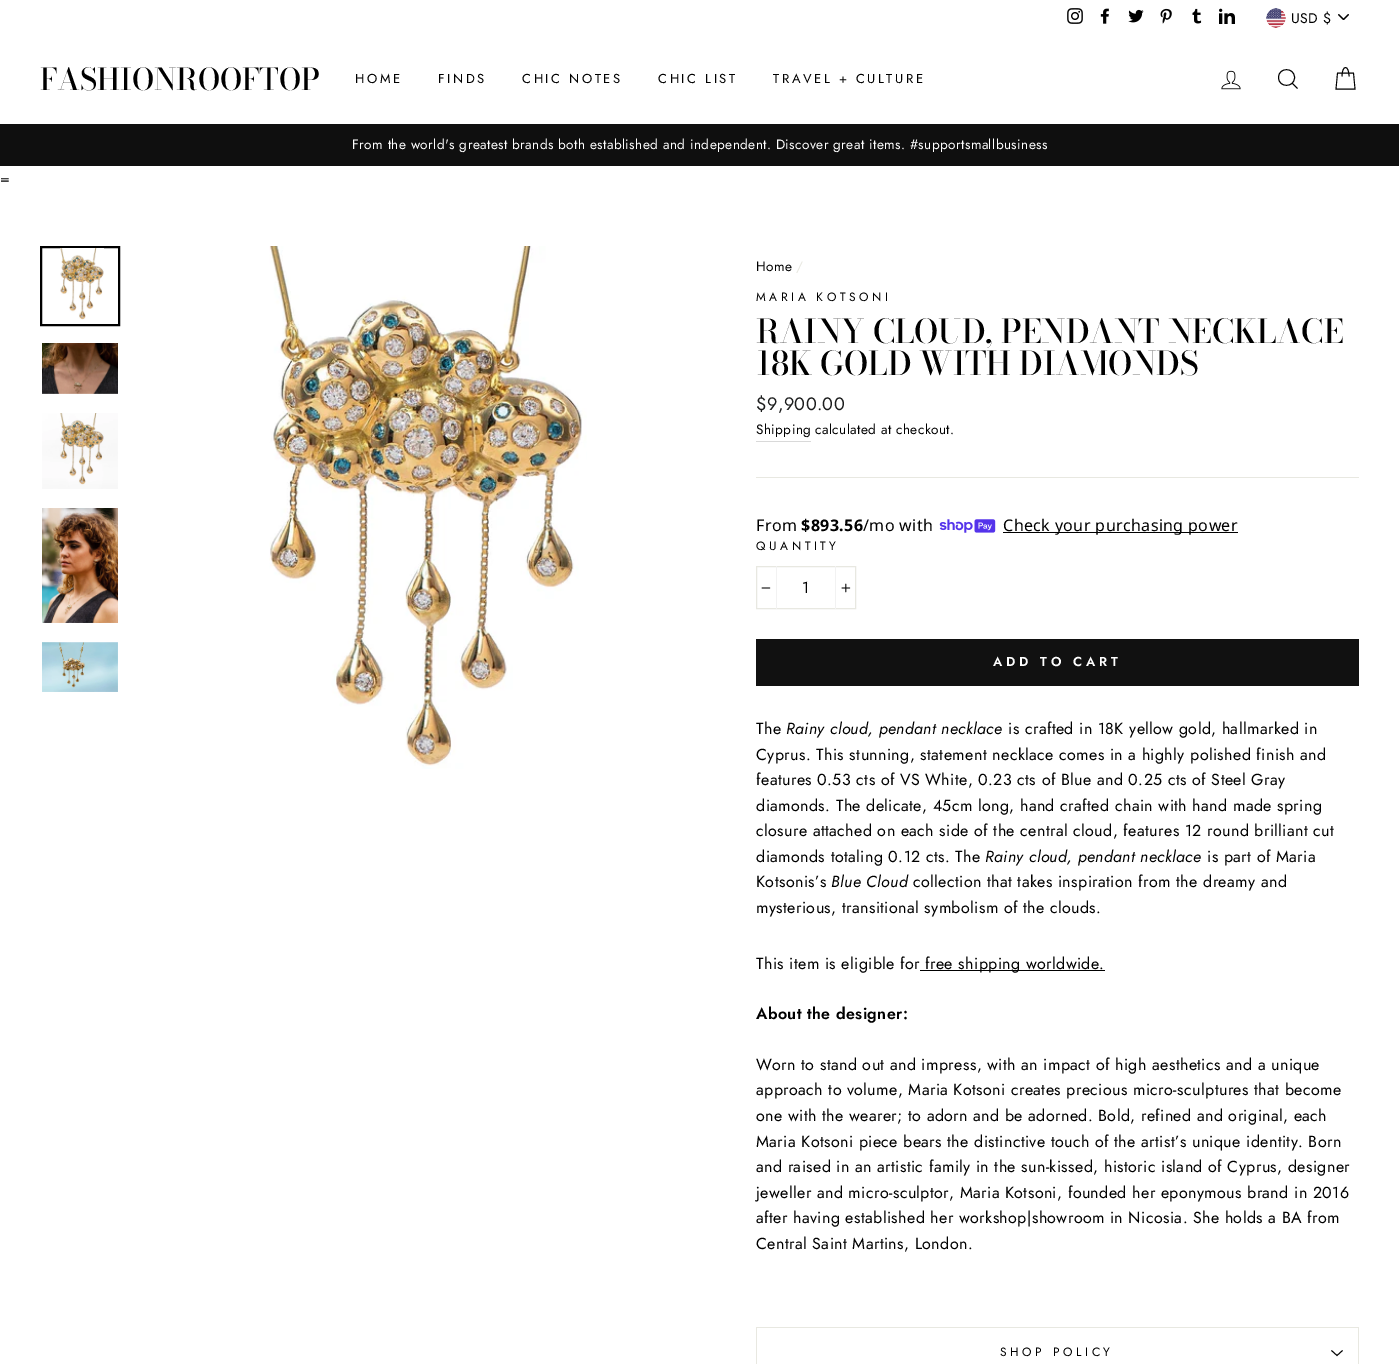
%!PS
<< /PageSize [1399 1364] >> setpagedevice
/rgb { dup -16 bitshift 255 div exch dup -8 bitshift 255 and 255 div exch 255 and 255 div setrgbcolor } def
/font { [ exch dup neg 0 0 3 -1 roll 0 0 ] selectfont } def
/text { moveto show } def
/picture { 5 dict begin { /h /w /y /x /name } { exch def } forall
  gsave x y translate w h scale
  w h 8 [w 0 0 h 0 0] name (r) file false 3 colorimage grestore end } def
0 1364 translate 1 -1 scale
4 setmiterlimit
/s1 { /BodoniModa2-Medium 30 font 16#000000 rgb } def
/s2 { /BodoniModa-Medium 32.7 font 16#000000 rgb } def
16#FFFFFF rgb
0 0 1399 1364 rectfill
(pic1.raw) 1067 8 16 16 picture
(pic2.raw) 1100 8 9 16 picture
(pic3.raw) 1128 9 16 14 picture
(pic4.raw) 1160 8 12 16 picture
(pic5.raw) 1192 8 10 16 picture
(pic6.raw) 1219 8 16 16 picture
(pic7.raw) 1338 14 11 6 picture
(pic8.raw) 1266 8 20 20 picture
/Jost-Regular 14 font
16#000000 rgb
1291 23 moveto 0.5 0 (USD $) ashow
s1
(FASHIONROOFTOP) 40 90 text
/Jost-Regular 13 font
355 83 moveto 2.6 0 (HOME) ashow
438 83 moveto 2.6 0 (FINDS) ashow
522 83 moveto 2.6 0 (CHIC NOTES) ashow
658 83 moveto 2.6 0 (CHIC LIST) ashow
773 83 moveto 2.6 0 (TRAVEL + CULTURE) ashow
(pic9.raw) 1221 70 20 20 picture
0.9 setlinewidth
1294.5 77.5 moveto 1294.5 88 1278.5 88 1278.5 77.5 curveto 1278.5 67 1294.5 67 1294.5 77.5 curveto closepath 1297.5 88.5 moveto 1292.5 83.5 lineto stroke
1342 76.5 moveto 1342 64.5 1349 64.5 1349 76.5 curveto 1337.5 73 moveto 1353.5 73 lineto 1355 89 lineto 1336 89 lineto closepath stroke
16#0F0F0F rgb
0 124 1399 42 rectfill
/Jost-Regular 13.6 font
16#FFFFFF rgb
352 149 moveto 0.4 0 (From the world's greatest brands both established and independent. Discover great items. #supportsmallbusiness) ashow
/Jost-Regular 16 font
16#000000 rgb
0 184 moveto 0.4 0 (=) ashow
2 setlinewidth
41 247 78 78 rectstroke
(pic10.raw) 60 248 44 72 picture
(pic11.raw) 42 343 76 51 picture
(pic12.raw) 42 413 76 76 picture
(pic13.raw) 42 508 76 115 picture
(pic14.raw) 42 642 76 50 picture
(pic15.raw) 269 246 318 523 picture
/Jost-Regular 13.6 font
756 271 moveto 0.4 0 (Home) ashow
16#E8E8E1 rgb
796 271 moveto 0.4 0 (/) ashow
/Jost-Regular 12 font
16#000000 rgb
756 301 moveto 3.6 0 (MARIA KOTSONI) ashow
s2
(RAINY CLOUD, PENDANT NECKLACE) 756 343 text
(18K GOLD WITH DIAMONDS) 756 375 text
/Jost-Regular 18 font
16#1C1D1D rgb
756 410 moveto 0.4 0 ($9,900.00) ashow
16#D9D9D9 rgb
756 441 55 1 rectfill
/Jost-Regular 13.6 font
16#000000 rgb
756 434 moveto 0.4 0 (Shipping) ashow
815 434 moveto 0.4 0 (calculated at checkout.) ashow
16#E8E8E1 rgb
756 477 603 1 rectfill
/NotoSans-Regular 16 font
16#000000 rgb
756 531 moveto 0.4 0 (From) ashow
/NotoSans-Bold 16 font
801 531 moveto 0.4 0 ($893.56) ashow
/NotoSans-Regular 16 font
863 531 moveto 0.4 0 (/mo with) ashow
(pic16.raw) 939 519 57 14 picture
1003 532 235 1 rectfill
1003 531 moveto 0.4 0 (Check your purchasing power) ashow
/Jost-Regular 12 font
756 550 moveto 3.6 0 (QUANTITY) ashow
16#E8E8E1 rgb
1 setlinewidth
756.5 566.5 99 42 rectstroke
16#F2F2F2 rgb
776 566 1 43 rectfill
(pic17.raw) 761 587 10 2 picture
/Jost-Regular 16 font
16#000000 rgb
802 593 moveto 0.4 0 (1) ashow
16#F2F2F2 rgb
835 566 1 43 rectfill
(pic18.raw) 841 583 10 10 picture
16#111111 rgb
756 639 603 47 rectfill
/Jost-SemiBold 13 font
16#FFFFFF rgb
993 666 moveto 3.9 0 (ADD TO CART) ashow
/Jost-Regular 16 font
16#000000 rgb
756 734 moveto 0.4 0 (The) ashow
/Jost-Italic 16 font
786 734 moveto 0.4 0 (Rainy cloud, pendant necklace) ashow
/Jost-Regular 16 font
1008 734 moveto 0.4 0 (is crafted in 18K yellow gold, hallmarked in) ashow
756 760 moveto 0.4 0 (Cyprus. This stunning, statement necklace comes in a highly polished finish and) ashow
756 785 moveto 0.4 0 (features 0.53 cts of VS White, 0.23 cts of Blue and 0.25 cts of Steel Gray) ashow
756 811 moveto 0.4 0 (diamonds. The delicate, 45cm long, hand crafted chain with hand made spring) ashow
756 836 moveto 0.4 0 (closure attached on each side of the central cloud, features 12 round brilliant cut) ashow
756 862 moveto 0.4 0 (diamonds totaling 0.12 cts. The) ashow
/Jost-Italic 16 font
985 862 moveto 0.4 0 (Rainy cloud, pendant necklace) ashow
/Jost-Regular 16 font
1207 862 moveto 0.4 0 (is part of Maria) ashow
756 887 moveto 0.4 0 (Kotsonis’s) ashow
/Jost-Italic 16 font
831 887 moveto 0.4 0 (Blue Cloud) ashow
/Jost-Regular 16 font
913 887 moveto 0.4 0 (collection that takes inspiration from the dreamy and) ashow
756 913 moveto 0.4 0 (mysterious, transitional symbolism of the clouds.) ashow
756 969 moveto 0.4 0 (This item is eligible for) ashow
920 970 185 1 rectfill
925 969 moveto 0.4 0 (free shipping worldwide.) ashow
/Jost-SemiBold 16 font
756 1019 moveto 0.4 0 (About the designer:) ashow
/Jost-Regular 16 font
756 1070 moveto 0.4 0 (Worn to stand out and impress, with an impact of high aesthetics and a unique) ashow
756 1095 moveto 0.4 0 (approach to volume, Maria Kotsoni creates precious micro-sculptures that become) ashow
756 1121 moveto 0.4 0 (one with the wearer; to adorn and be adorned. Bold, refined and original, each) ashow
756 1147 moveto 0.4 0 (Maria Kotsoni piece bears the distinctive touch of the artist’s unique identity. Born) ashow
756 1172 moveto 0.4 0 (and raised in an artistic family in the sun-kissed, historic island of Cyprus, designer) ashow
756 1198 moveto 0.4 0 (jeweller and micro-sculptor, Maria Kotsoni, founded her eponymous brand in 2016) ashow
756 1223 moveto 0.4 0 (after having established her workshop|showroom in Nicosia. She holds a BA from) ashow
756 1249 moveto 0.4 0 (Central Saint Martins, London.) ashow
16#E8E8E1 rgb
756 1327 603 1 rectfill
1358 1327 1 37 rectfill
756 1327 1 37 rectfill
/Jost-Regular 12 font
16#000000 rgb
1000 1356 moveto 3.6 0 (SHOP POLICY) ashow
0.9 setlinewidth
1331.5 1350.5 moveto 1337 1355.5 lineto 1342.5 1350.5 lineto stroke
showpage
